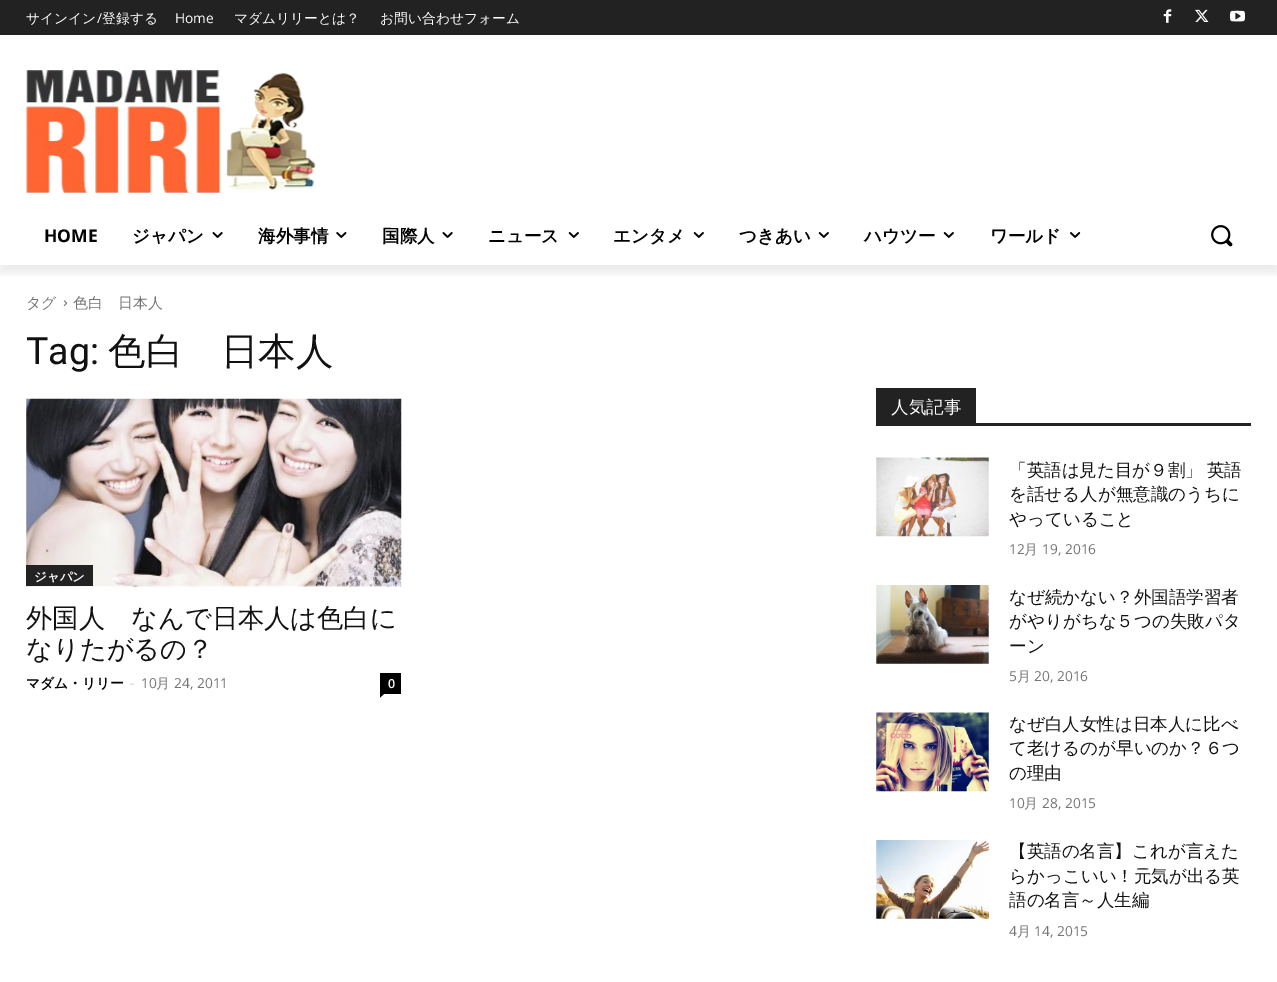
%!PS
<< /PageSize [1277 982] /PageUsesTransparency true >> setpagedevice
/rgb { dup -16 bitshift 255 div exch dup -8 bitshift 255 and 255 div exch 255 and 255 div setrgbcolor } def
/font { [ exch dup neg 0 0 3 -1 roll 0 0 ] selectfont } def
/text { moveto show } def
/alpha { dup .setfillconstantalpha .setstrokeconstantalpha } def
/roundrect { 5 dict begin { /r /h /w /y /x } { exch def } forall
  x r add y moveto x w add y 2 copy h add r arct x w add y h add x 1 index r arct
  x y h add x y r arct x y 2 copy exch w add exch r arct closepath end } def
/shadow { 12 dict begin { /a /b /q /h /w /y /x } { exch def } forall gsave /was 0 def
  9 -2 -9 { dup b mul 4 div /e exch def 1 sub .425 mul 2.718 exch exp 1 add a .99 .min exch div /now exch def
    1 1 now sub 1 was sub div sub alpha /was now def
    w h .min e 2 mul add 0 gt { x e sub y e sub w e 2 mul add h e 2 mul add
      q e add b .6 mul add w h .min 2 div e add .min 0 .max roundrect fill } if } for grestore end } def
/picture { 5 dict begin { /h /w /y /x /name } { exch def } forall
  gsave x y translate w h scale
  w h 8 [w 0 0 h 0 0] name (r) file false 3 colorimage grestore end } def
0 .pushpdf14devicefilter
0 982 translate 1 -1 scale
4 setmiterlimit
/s1 { /WenQuanYiZenHei-Medium 13.75 font 16#FFFFFF rgb } def
/s2 { /OpenSans-Regular 13.75 font 16#FFFFFF rgb } def
/s3 { /NotoSans-Bold 17.5 font 16#000000 rgb } def
/s4 { /WenQuanYiZenHei-Bold 17.5 font 16#000000 rgb } def
/s5 { /WenQuanYiZenHei-Medium 15 font 16#747474 rgb } def
/s6 { /Roboto-Regular 37.5 font 16#111111 rgb } def
/s7 { /WenQuanYiZenHei-Medium 37.5 font 16#111111 rgb } def
/s8 { /WenQuanYiZenHei-Bold 12.5 font 16#FFFFFF rgb } def
/s9 { /WenQuanYiZenHei-Medium 26.25 font 16#111111 rgb } def
/s10 { /WenQuanYiZenHei-Bold 13.75 font 16#000000 rgb } def
/s11 { /OpenSans-Regular 13.75 font 16#CCCCCC rgb } def
/s12 { /OpenSans-Regular 13.75 font 16#747474 rgb } def
/s13 { /WenQuanYiZenHei-Medium 13.75 font 16#747474 rgb } def
/s14 { /OpenSans-SemiBold 12.5 font 16#FFFFFF rgb } def
/s15 { /WenQuanYiZenHei-Medium 17.5 font 16#FFFFFF rgb } def
/s16 { /WenQuanYiZenHei-Medium 17.5 font 16#111111 rgb } def
16#FFFFFF rgb
0 0 1277 982 rectfill
16#222222 rgb
0 0 1277 35 rectfill
(pic1.raw) 1163 9 9 14 picture
(pic2.raw) 1195 9 14 13 picture
(pic3.raw) 1230 10 15 12 picture
(pic4.raw) 26 70 290 123 picture
gsave
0 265 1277 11 rectclip
16#000000 rgb
0 8 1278 265 0 5 0.08 shadow
grestore
s1
(サインイン) 26 23 text
s2
(/) 97 23 text
s1
(登録する) 102 23 text
s2
(Home) 175 23 text
s1
(マダムリリーとは？) 234 23 text
(お問い合わせフォーム) 380 23 text
s3
(HOME) 44 242 text
s4
(ジャパン) 132 242 text
(pic5.raw) 212 232 11 6 picture
(海外事情) 258 242 text
(pic6.raw) 336 232 11 6 picture
(国際人) 382 242 text
(pic5.raw) 442 232 11 6 picture
(ニュース) 488 242 text
(pic7.raw) 568 232 11 6 picture
(エンタメ) 613 242 text
(pic7.raw) 693 232 11 6 picture
(つきあい) 739 242 text
(pic7.raw) 818 232 11 6 picture
(ハウツー) 864 242 text
(pic7.raw) 943 232 11 6 picture
(ワールド) 990 242 text
(pic8.raw) 1070 232 11 6 picture
(pic9.raw) 1211 225 22 22 picture
s5
(タグ) 26 308 text
(pic10.raw) 63 300 5 7 picture
(色白　日本人) 73 308 text
s6
(Tag:) 26 364 text
s7
(色白　日本人) 108 364 text
(pic11.raw) 26 398 376 189 picture
16#222222 rgb
26 565 67 21 rectfill
s8
(ジャパン) 34 581 text
s9
(外国人　なんで日本人は色白に) 26 627 text
(なりたがるの？) 26 658 text
s10
(マダム・リリー) 26 688 text
s11
(-) 130 688 text
s12
(10) 141 688 text
s13
(月) 156 688 text
s12
(24, 2011) 174 688 text
16#000000 rgb
380 673 21 21 rectfill
s14
(0) 388 688 text
16#000000 rgb
380 694 moveto 384 694 lineto 380 697.5 lineto closepath fill
16#222222 rgb
876 423 375 3 rectfill
876 388 100 35 rectfill
s15
(人気記事) 891 413 text
(pic12.raw) 876 457 113 80 picture
16#111111 rgb
1009 476 moveto -1 0 32 (「英語は見た目が９割」 英語) widthshow
(を話せる人が無意識のうちに) 1009 500 text
(やっていること) 1009 525 text
s12
(12) 1009 554 text
s13
(月) 1024 554 text
s12
(19, 2016) 1042 554 text
(pic13.raw) 876 585 113 79 picture
s16
(なぜ続かない？外国語学習者) 1009 603 text
(がやりがちな５つの失敗パタ) 1009 627 text
(ーン) 1009 652 text
s12
(5) 1009 681 text
s13
(月) 1017 681 text
s12
(20, 2016) 1034 681 text
(pic14.raw) 876 712 113 80 picture
s16
(なぜ白人女性は日本人に比べ) 1009 730 text
(て老けるのが早いのか？６つ) 1009 754 text
(の理由) 1009 779 text
s12
(10) 1009 808 text
s13
(月) 1024 808 text
s12
(28, 2015) 1042 808 text
(pic15.raw) 876 840 113 79 picture
s16
(【英語の名言】これが言えた) 1009 857 text
(らかっこいい！元気が出る英) 1009 882 text
(語の名言～人生編) 1009 906 text
s12
(4) 1009 936 text
s13
(月) 1017 936 text
s12
(14, 2015) 1034 936 text
.poppdf14devicefilter showpage
